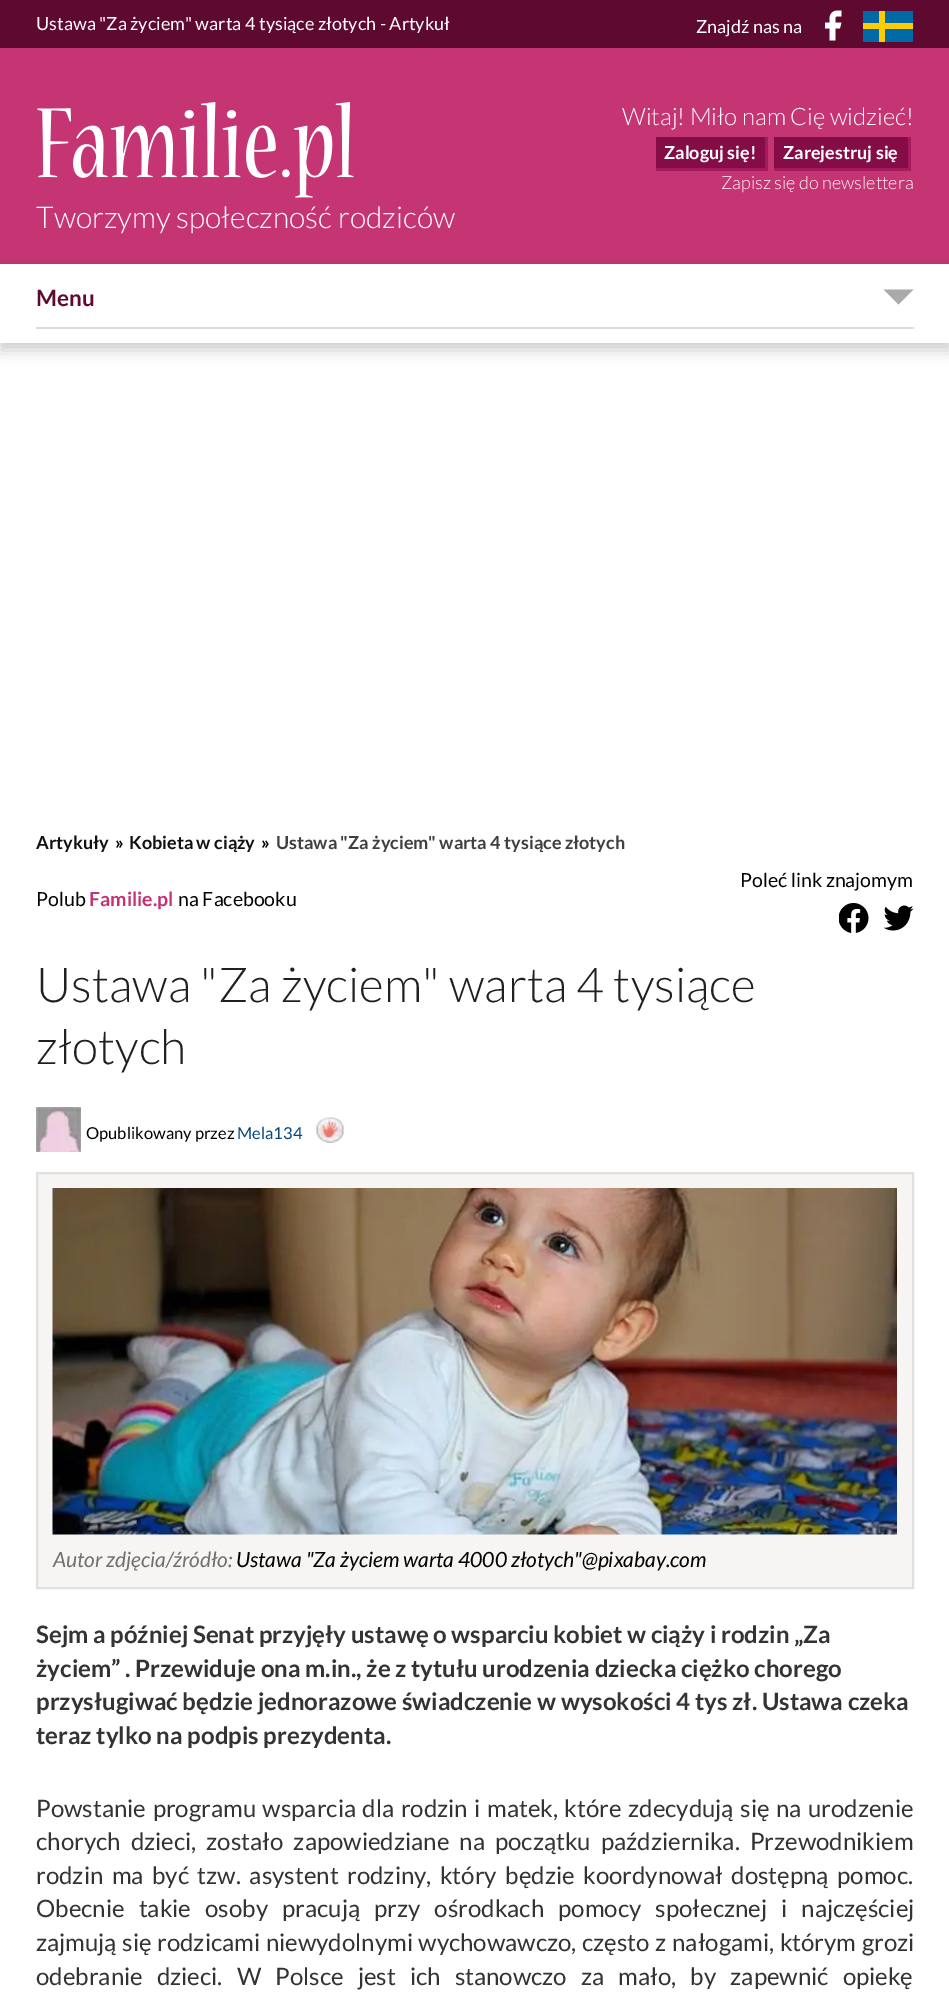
%!PS
<< /PageSize [949 2008] /PageUsesTransparency true >> setpagedevice
/rgb { dup -16 bitshift 255 div exch dup -8 bitshift 255 and 255 div exch 255 and 255 div setrgbcolor } def
/font { [ exch dup neg 0 0 3 -1 roll 0 0 ] selectfont } def
/text { moveto show } def
/alpha { dup .setfillconstantalpha .setstrokeconstantalpha } def
/roundrect { 5 dict begin { /r /h /w /y /x } { exch def } forall
  x r add y moveto x w add y 2 copy h add r arct x w add y h add x 1 index r arct
  x y h add x y r arct x y 2 copy exch w add exch r arct closepath end } def
/shadow { 12 dict begin { /a /b /q /h /w /y /x } { exch def } forall gsave /was 0 def
  9 -2 -9 { dup b mul 4 div /e exch def 1 sub .425 mul 2.718 exch exp 1 add a .99 .min exch div /now exch def
    1 1 now sub 1 was sub div sub alpha /was now def
    w h .min e 2 mul add 0 gt { x e sub y e sub w e 2 mul add h e 2 mul add
      q e add b .6 mul add w h .min 2 div e add .min 0 .max roundrect fill } if } for grestore end } def
/picture { 5 dict begin { /h /w /y /x /name } { exch def } forall
  gsave x y translate w h scale
  w h 8 [w 0 0 h 0 0] name (r) file false 3 colorimage grestore end } def
0 .pushpdf14devicefilter
0 2008 translate 1 -1 scale
4 setmiterlimit
/s1 { /Lato-Regular 18 font 16#FFFFFF rgb } def
/s2 { /Lato-Light 24 font 16#FFFFFF rgb } def
/s3 { /Lato-Bold 18 font 16#FFFFFF rgb } def
/s4 { /Lato-Light 18 font 16#FFFFFF rgb } def
/s5 { /Lato-Light 30 font 16#FFFFFF rgb } def
/s6 { /Lato-Bold 22.5 font 16#5E0930 rgb } def
/s7 { /Lato-Bold 18 font 16#111111 rgb } def
/s8 { /Lato-Bold 18 font 16#000000 rgb } def
/s9 { /Lato-Bold 18 font 16#3F3F3F rgb } def
/s10 { /Lato-Regular 19.5 font 16#000000 rgb } def
/s11 { /Lato-Bold 19.5 font 16#C43175 rgb } def
/s12 { /Lato-Light 48 font 16#202020 rgb } def
/s13 { /Lato-Regular 16.5 font 16#000000 rgb } def
/s14 { /Lato-Regular 16.5 font 16#03487F rgb } def
/s15 { /Lato-Italic 21 font 16#707070 rgb } def
/s16 { /Lato-Italic 21 font 16#000000 rgb } def
/s17 { /Lato-Bold 24 font 16#333333 rgb } def
16#FFFFFF rgb
0 0 949 2008 rectfill
16#5E0930 rgb
0 0 949 48 rectfill
s1
(Ustawa "Za życiem" warta 4 tysiące złotych - Artykuł) 36 30 text
(Znajdź nas na) 696 33 text
(pic1.raw) 825 10 17 31 picture
16#006AA7 rgb
863 11 50 31 rectfill
16#FECC00 rgb
879 11 6 31 rectfill
863 23 50 6 rectfill
16#C53573 rgb
0 48 949 216 rectfill
s2
(Witaj! Miło nam Cię widzieć!) 622 125 text
16#840D47 rgb
656 137 109 31 rectfill
16#A51A5D rgb
765 137 3 34 rectfill
656 168 112 3 rectfill
s3
(Zaloguj się!) 664 159 text
16#840D47 rgb
774 137 134 31 rectfill
16#A51A5D rgb
908 137 3 34 rectfill
774 168 137 3 rectfill
s3
(Zarejestruj się) 783 159 text
s4
(Zapisz się do newslettera) 721 189 text
(pic2.raw) 37 102 317 96 picture
s5
(Tworzymy społeczność rodziców) 36 228 text
gsave
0 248 moveto 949 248 lineto 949 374 lineto 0 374 lineto closepath 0 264 moveto 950 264 lineto 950 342 lineto 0 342 lineto closepath eoclip newpath
16#000000 rgb
0 272 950 78 0 7.5 0.2 shadow
grestore
16#FEFEFE rgb
0 342 949 1 rectfill
16#DDDDDD rgb
36 327 878 2 rectfill
s6
(Menu) 36 306 text
16#AAAAAA rgb
883.5 289.5 moveto 913.5 289.5 lineto 898.5 304.5 lineto closepath fill
s7
(Artykuły) 36 849 text
s8
(») 115 849 text
s7
(Kobieta w ciąży) 129 849 text
s8
(») 261 849 text
s9
(Ustawa "Za życiem" warta 4 tysiące złotych) 276 849 text
s10
(Poleć link znajomym) 740 887 text
(pic3.raw) 839 903 30 30 picture
(pic4.raw) 884 905 30 26 picture
(Polub) 36 906 text
s11
(Familie.pl) 89 906 text
s10
(na Facebooku) 178 906 text
s12
(Ustawa "Za życiem" warta 4 tysiące) 36 1002 text
(złotych) 36 1064 text
(pic5.raw) 36 1107 45 45 picture
s13
(Opublikowany przez) 86 1139 text
s14
(Mela134) 237 1139 text
(pic6.raw) 316 1117 28 26 picture
16#F6F5F3 rgb
37 1173 moveto 913 1173 lineto 913 1588 lineto 37 1588 lineto closepath gsave fill grestore
16#E1DFE0 rgb
2 setlinewidth
stroke
(pic7.raw) 52 1188 845 347 picture
s15
(Autor zdjęcia/źródło:) 53 1567 text
s16
(Ustawa "Za życiem warta 4000 złotych"@pixabay.com) 236 1567 text
s17
(Sejm a później Senat przyjęły ustawę o wsparciu kobiet w ciąży i rodzin „Za) 36 1643 text
(życiem” . Przewiduje ona m.in., że z tytułu urodzenia dziecka ciężko chorego) 36 1677 text
(przysługiwać będzie jednorazowe świadczenie w wysokości 4 tys zł. Ustawa czeka) 36 1710 text
(teraz tylko na podpis prezydenta.) 36 1744 text
/Lato-Regular 24 font
36 1817 moveto 1.9 0 32 (Powstanie programu wsparcia dla rodzin i matek, które zdecydują się na urodzenie) widthshow
36 1850 moveto 5.5 0 32 (chorych dzieci, zostało zapowiedziane na początku października. Przewodnikiem) widthshow
36 1884 moveto 3.9 0 32 (rodzin ma być tzw. asystent rodziny, który będzie koordynował dostępną pomoc.) widthshow
36 1917 moveto 9.5 0 32 (Obecnie takie osoby pracują przy ośrodkach pomocy społecznej i najczęściej) widthshow
36 1951 moveto 1 0 32 (zajmują się rodzicami niewydolnymi wychowawczo, często z nałogami, którym grozi) widthshow
36 1985 moveto 9.5 0 32 (odebranie dzieci. W Polsce jest ich stanowczo za mało, by zapewnić opiekę) widthshow
.poppdf14devicefilter showpage
